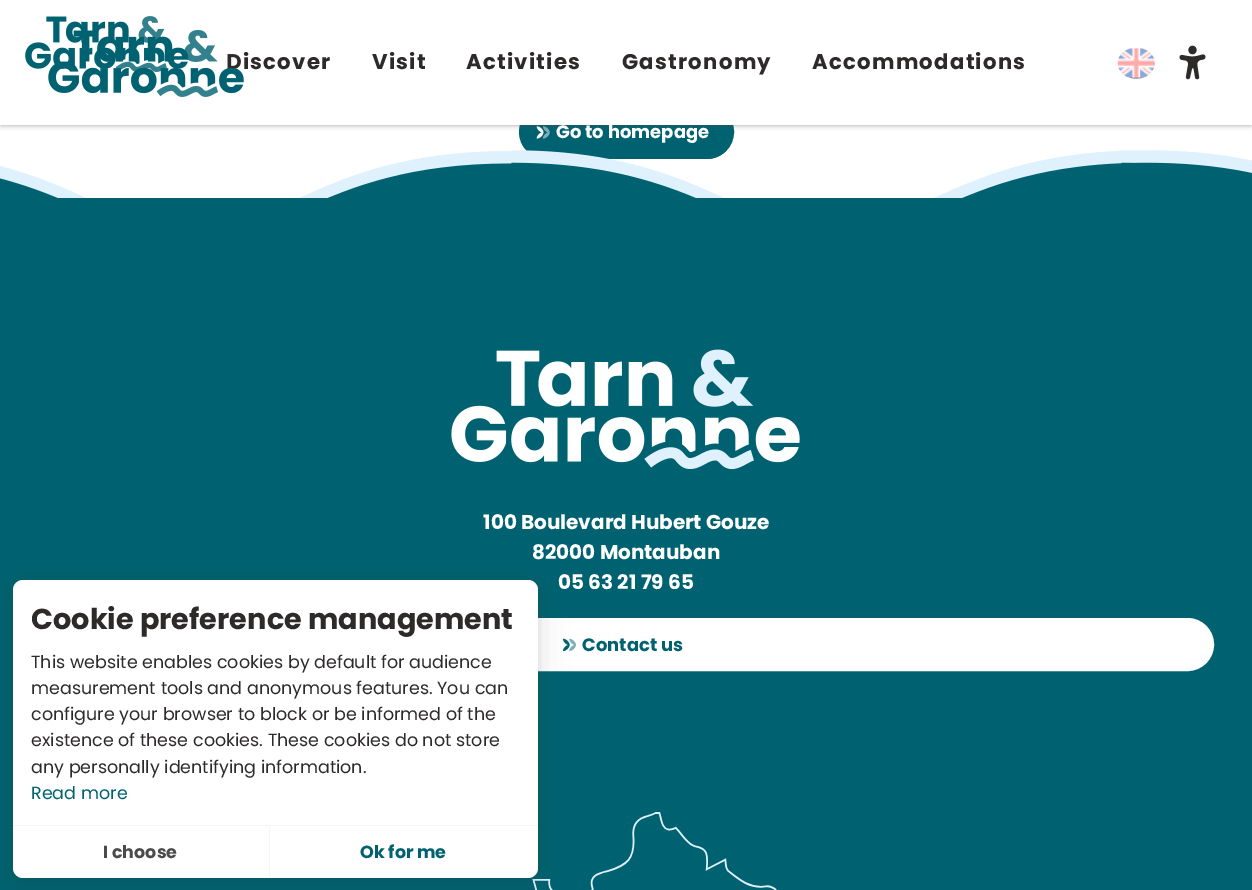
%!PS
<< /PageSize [1252 890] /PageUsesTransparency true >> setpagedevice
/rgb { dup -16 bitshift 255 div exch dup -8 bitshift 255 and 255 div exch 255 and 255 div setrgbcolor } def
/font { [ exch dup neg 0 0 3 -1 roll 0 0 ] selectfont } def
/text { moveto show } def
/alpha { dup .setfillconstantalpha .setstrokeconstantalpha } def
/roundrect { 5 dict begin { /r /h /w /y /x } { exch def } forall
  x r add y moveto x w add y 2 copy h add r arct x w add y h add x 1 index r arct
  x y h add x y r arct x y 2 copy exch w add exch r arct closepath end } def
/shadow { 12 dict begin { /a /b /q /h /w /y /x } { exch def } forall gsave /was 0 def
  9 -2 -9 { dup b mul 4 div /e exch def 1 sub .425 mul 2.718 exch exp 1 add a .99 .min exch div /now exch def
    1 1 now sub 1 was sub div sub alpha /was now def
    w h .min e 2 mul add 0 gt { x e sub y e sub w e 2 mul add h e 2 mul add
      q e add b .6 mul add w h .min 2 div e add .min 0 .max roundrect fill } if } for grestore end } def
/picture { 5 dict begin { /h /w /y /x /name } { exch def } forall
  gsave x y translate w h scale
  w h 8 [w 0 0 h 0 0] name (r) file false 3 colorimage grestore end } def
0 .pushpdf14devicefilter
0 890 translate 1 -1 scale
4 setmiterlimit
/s1 { /Poppins-Bold 18 font 16#FFFFFF rgb } def
/s2 { /Poppins-Bold 20 font 16#FFFFFF rgb } def
/s3 { /Poppins-Bold 18 font 16#006271 rgb } def
/s4 { /Poppins-Bold 28.75 font 16#2D2A2A rgb } def
/s5 { /Poppins-Regular 17.5 font 16#2D2A2A rgb } def
/s6 { /Poppins-Regular 17.5 font 16#006271 rgb } def
/s7 { /Poppins-Bold 17.5 font 16#4B4B4B rgb } def
/s8 { /Poppins-Bold 17.5 font 16#006271 rgb } def
16#FFFFFF rgb
0 0 1252 890 rectfill
16#006271 rgb
520.5 106.5 212 51 25.5 roundrect gsave fill grestore
3 setlinewidth
stroke
(pic5.raw) 536 126 8 13 picture
(pic6.raw) 543 126 7 13 picture
16#4B4B4B rgb
1 3 1250 122 0 2 0.3 shadow
1 4 1250 122 0 3 0.25 shadow
16#FFFFFF rgb
0 0 1252 125 rectfill
/Poppins-Bold 21.25 font
16#2D2A2A rgb
226 69 moveto 1.25 0 (Discover) ashow
(pic1.raw) 48 29 196 68 picture
372 69 moveto 1.25 0 (Visit) ashow
466 69 moveto 1.25 0 (Activities) ashow
622 69 moveto 1.25 0 (Gastronomy) ashow
812 69 moveto 1.25 0 (Accommodations) ashow
(pic2.raw) 1117 48 38 31 picture
(pic3.raw) 1179 45 27 35 picture
(pic4.raw) 25 16 164 56 picture
s1
(Go to homepage) 556 138 text
(pic7.raw) 0 150 1252 48 picture
16#006271 rgb
0 198 1252 692 rectfill
(pic8.raw) 0 162 1252 36 picture
(pic9.raw) 451 349 349 121 picture
s2
(100 Boulevard Hubert Gouze) 483 529 text
(82000 Montauban) 532 559 text
(05 63 21 79 65) 558 589 text
40.5 619.5 1172 50 25 roundrect gsave fill grestore
stroke
(pic10.raw) 562 638 8 14 picture
(pic11.raw) 569 638 7 14 picture
s3
(Contact us) 582 651 text
(pic12.raw) 532 812 245 78 picture
16#2D2A2A rgb
13 583 525 297 10 4 0.05 shadow
13 585 525 298 10 15 0.15 shadow
16#FFFFFF rgb
13 580 525 298 10 roundrect fill
s4
(Cookie preference management) 31 629 text
s5
(This website enables cookies by default for audience) 31 668 text
(measurement tools and anonymous features. You can) 31 694 text
(configure your browser to block or be informed of the) 31 720 text
(existence of these cookies. These cookies do not store) 31 746 text
(any personally identifying information.) 31 773 text
s6
(Read more) 31 799 text
16#F5F5F5 rgb
13 825 525 1 rectfill
269 826 1 52 rectfill
s7
(I choose) 103 858 text
s8
(Ok for me) 360 858 text
.poppdf14devicefilter showpage
